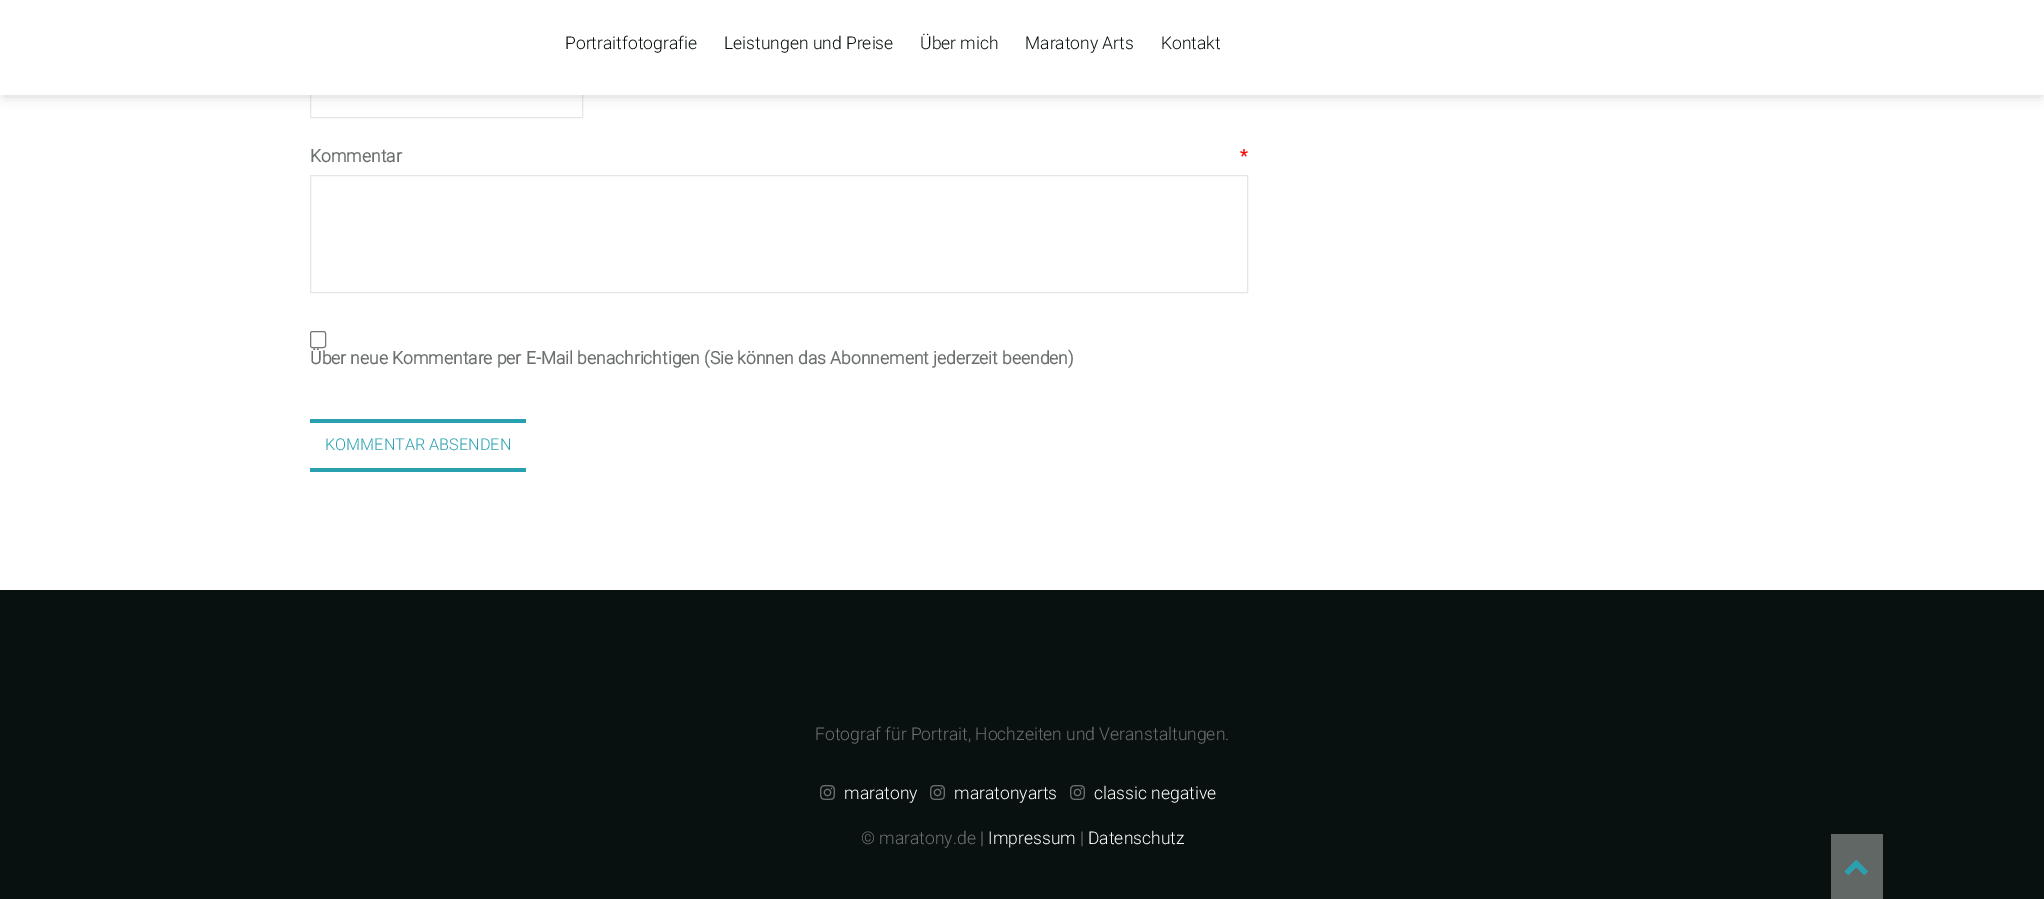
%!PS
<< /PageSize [2044 899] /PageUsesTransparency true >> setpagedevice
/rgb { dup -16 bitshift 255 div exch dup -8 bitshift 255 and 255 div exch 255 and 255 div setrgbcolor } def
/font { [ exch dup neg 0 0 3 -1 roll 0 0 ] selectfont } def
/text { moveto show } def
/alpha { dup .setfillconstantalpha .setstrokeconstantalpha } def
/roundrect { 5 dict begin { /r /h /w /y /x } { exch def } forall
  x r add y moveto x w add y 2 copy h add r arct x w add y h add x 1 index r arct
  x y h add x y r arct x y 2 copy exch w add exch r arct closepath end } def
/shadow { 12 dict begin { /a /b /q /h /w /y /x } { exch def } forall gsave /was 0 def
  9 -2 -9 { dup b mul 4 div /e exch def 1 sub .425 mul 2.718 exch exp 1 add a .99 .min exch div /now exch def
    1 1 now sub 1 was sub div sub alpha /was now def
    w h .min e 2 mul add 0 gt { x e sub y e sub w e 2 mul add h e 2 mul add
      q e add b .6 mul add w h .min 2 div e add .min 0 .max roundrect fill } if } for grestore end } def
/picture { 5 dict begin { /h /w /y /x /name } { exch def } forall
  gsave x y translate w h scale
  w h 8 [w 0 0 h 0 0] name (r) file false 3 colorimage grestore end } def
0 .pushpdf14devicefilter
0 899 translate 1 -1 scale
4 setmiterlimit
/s1 { /Roboto-Light 17.5 font 16#08110F rgb } def
/s2 { /Roboto-Bold 17.5 font 16#6B706F rgb } def
/s3 { /Roboto-Bold 17.5 font 16#FF0000 rgb } def
/s4 { /Roboto-Light 16.25 font 16#28A0B0 rgb } def
/s5 { /Roboto-Light 17.5 font 16#6B706F rgb } def
/s6 { /Roboto-Light 17.5 font 16#FFFFFF rgb } def
16#FFFFFF rgb
0 0 2044 899 rectfill
16#E6E6E6 rgb
310.5 75.5 272 42 rectstroke
16#000000 rgb
5 8 2035 85 0 7 0.3 shadow
16#FFFFFF rgb
0 0 2044 95 rectfill
s1
(Portraitfotografie) 565 49 text
(Leistungen und Preise) 724 49 text
(Über mich) 920 49 text
(Maratony Arts) 1025 49 text
(Kontakt) 1161 49 text
0 590 2044 309 rectfill
16#616765 rgb
1831 834 52 65 rectfill
(pic1.raw) 1845 860 23 15 picture
(pic2.raw) 1845 860 23 15 picture
s2
(Kommentar) 310 162 text
s3
(*) 1240 162 text
16#E6E6E6 rgb
310.5 175.5 937 117 rectstroke
16#767676 rgb
310.5 331.5 15 16 2 roundrect stroke
s2
(Über neue Kommentare per E-Mail benachrichtigen \(Sie können das Abonnement jederzeit beenden\)) 310 364 text
16#28A0B0 rgb
310 419 216 4 rectfill
310 468 216 4 rectfill
s4
(KOMMENTAR ABSENDEN) 325 450 text
s5
(Fotograf für Portrait, Hochzeiten und Veranstaltungen.) 815 740 text
(pic3.raw) 820 785 15 15 picture
s6
(maratony) 844 799 text
(pic3.raw) 930 785 15 15 picture
(maratonyarts) 954 799 text
(pic3.raw) 1070 785 15 15 picture
(classic negative) 1094 799 text
s5
(© maratony.de |) 861 844 text
s6
(Impressum) 988 844 text
s5
(|) 1080 844 text
s6
(Datenschutz) 1088 844 text
.poppdf14devicefilter showpage
